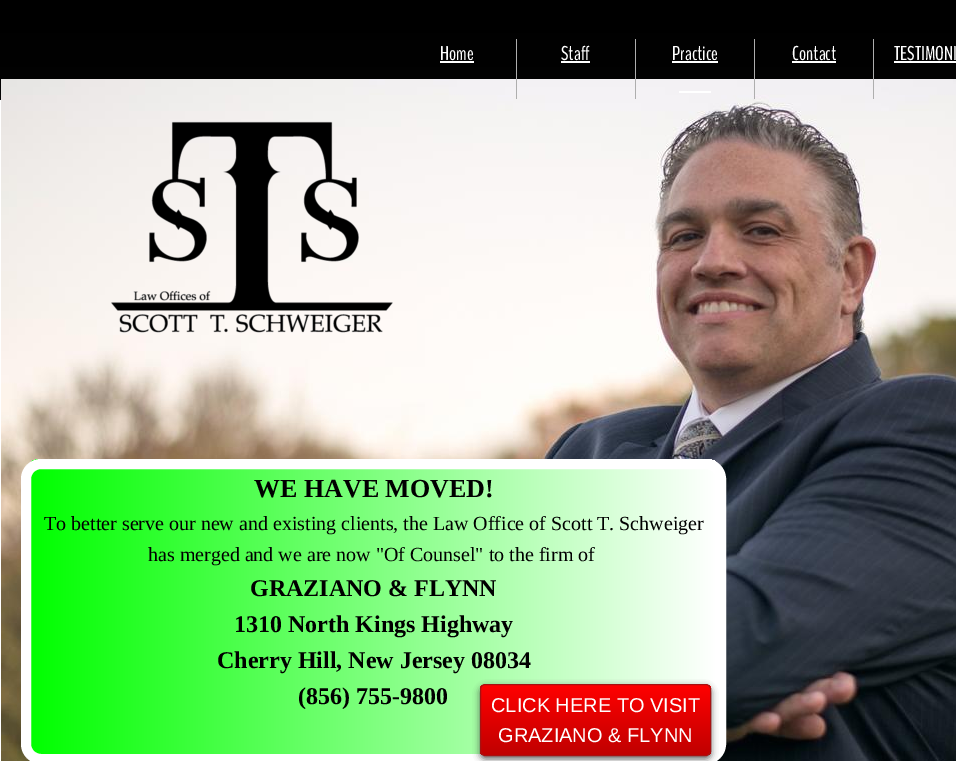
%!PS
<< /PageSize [956 761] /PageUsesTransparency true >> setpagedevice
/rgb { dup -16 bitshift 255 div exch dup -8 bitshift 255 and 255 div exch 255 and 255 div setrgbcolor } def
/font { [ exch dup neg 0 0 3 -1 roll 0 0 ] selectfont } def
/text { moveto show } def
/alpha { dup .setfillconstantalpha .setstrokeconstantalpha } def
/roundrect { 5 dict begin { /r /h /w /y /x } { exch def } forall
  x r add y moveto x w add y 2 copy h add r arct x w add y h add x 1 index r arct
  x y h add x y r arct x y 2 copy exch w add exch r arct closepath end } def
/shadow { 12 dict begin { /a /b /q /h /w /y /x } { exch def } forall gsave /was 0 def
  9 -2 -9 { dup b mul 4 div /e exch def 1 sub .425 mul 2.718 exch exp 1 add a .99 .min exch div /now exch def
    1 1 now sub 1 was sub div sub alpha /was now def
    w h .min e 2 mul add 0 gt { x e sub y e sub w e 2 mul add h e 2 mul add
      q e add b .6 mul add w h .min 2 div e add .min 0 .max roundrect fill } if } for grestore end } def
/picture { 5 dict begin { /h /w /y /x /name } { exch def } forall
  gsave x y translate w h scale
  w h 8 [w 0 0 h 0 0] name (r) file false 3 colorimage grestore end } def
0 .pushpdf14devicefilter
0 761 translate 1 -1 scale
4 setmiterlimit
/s1 { /BenchNine-Regular 20 font 16#FFFFFF rgb } def
/s2 { /LiberationSerif-Bold 26 font 16#000000 rgb } def
/s3 { /LiberationSerif-Regular 20 font 16#000000 rgb } def
/s4 { /LiberationSerif-Bold 24 font 16#000000 rgb } def
/s5 { /LiberationSans-Regular 20 font 16#FFFFFF rgb } def
16#FFFFFF rgb
0 0 956 761 rectfill
gsave 0 0 moveto 956 0 lineto 956 100 lineto 0 100 lineto closepath clip newpath
<< /ShadingType 2 /ColorSpace /DeviceRGB /Coords [478 0 478 761] /Extend [true true] /Function << /FunctionType 2 /Domain [0 1] /C0 [0 0 0] /C1 [0.098 0.098 0.098] /N 1 >> >> shfill grestore
16#141414 rgb
0 100 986 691 0 10 0.9 shadow
16#FFFFFF rgb
0 100 1 661 rectfill
(pic1.raw) 1 79 955 682 picture
16#AEAEAE rgb
516 39 1 60 rectfill
s1
(Home) 440 60 text
440 61 34 2 rectfill
16#AEAEAE rgb
635 39 1 60 rectfill
s1
(Staff) 561 60 text
561 61 29 2 rectfill
16#AEAEAE rgb
754 39 1 60 rectfill
s1
(Practice) 672 60 text
672 61 46 2 rectfill
679 91 32 2 rectfill
16#AEAEAE rgb
873 39 1 60 rectfill
s1
(Contact) 792 60 text
792 61 44 2 rectfill
(TESTIMONI) 894 60 text
894 61 62 2 rectfill
(pic2.raw) 111 121 282 212 picture
gsave
21 459 705 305 20 roundrect clip newpath
gsave 31 459 moveto 716 459 lineto 716 754 lineto 31 754 lineto closepath clip newpath
<< /ShadingType 2 /ColorSpace /DeviceRGB /Coords [31 612 716 612] /Extend [true true] /Function << /FunctionType 2 /Domain [0 1] /C0 [0 1 0] /C1 [1 1 1] /N 1 >> >> shfill grestore
grestore
10 setlinewidth
26 464 695 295 15 roundrect stroke
s2
(WE HAVE MOVED!) 254 497 text
s3
(To better serve our new and existing clients, the Law Office of Scott T. Schweiger) 44 530 text
(has merged and we are now "Of Counsel" to the firm of) 148 561 text
s4
(GRAZIANO & FLYNN) 250 596 text
(1310 North Kings Highway) 234 632 text
(Cherry Hill, New Jersey 08034) 217 668 text
(\(856\) 755-9800) 298 704 text
16#323232 rgb
480 687 231 72 5 3.5 0.75 shadow
gsave
480 684 231 72 5 roundrect clip newpath
gsave 480 685 moveto 711 685 lineto 711 755 lineto 480 755 lineto closepath clip newpath
<< /ShadingType 2 /ColorSpace /DeviceRGB /Coords [596 685 596 755] /Extend [true true] /Function << /FunctionType 2 /Domain [0 1] /C0 [1 0 0] /C1 [0.753 0 0] /N 1 >> >> shfill grestore
grestore
16#A61212 rgb
1 setlinewidth
480.5 684.5 230 71 4.5 roundrect stroke
s5
(CLICK HERE TO VISIT) 491 712 text
(GRAZIANO & FLYNN) 498 742 text
.poppdf14devicefilter showpage
